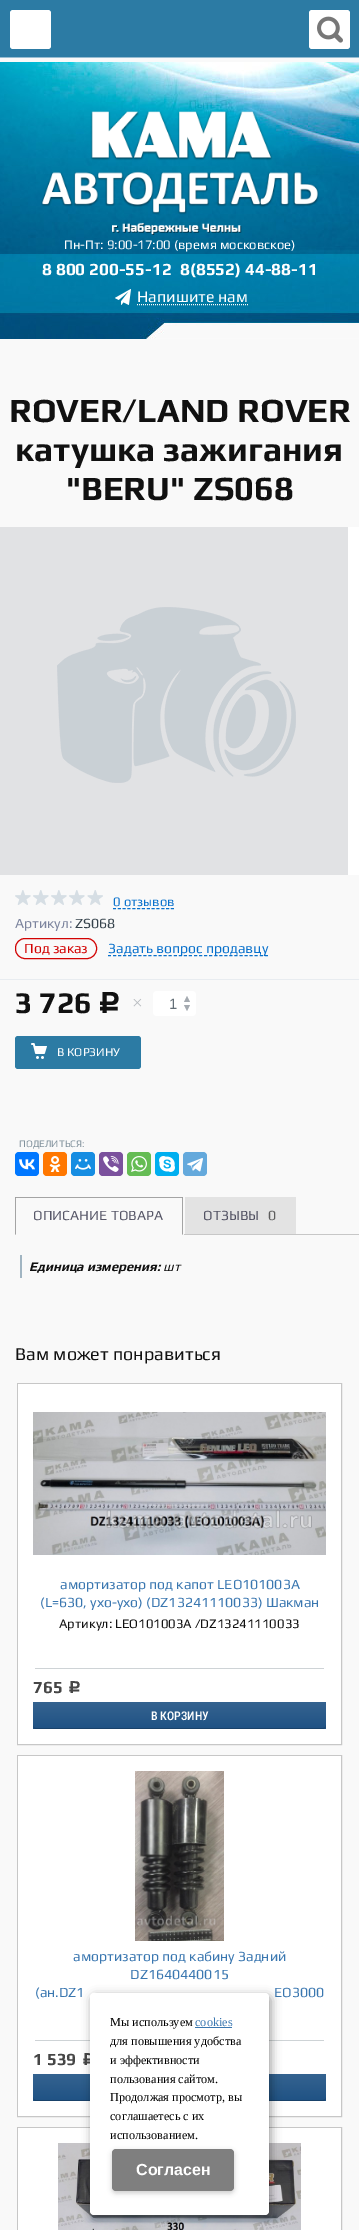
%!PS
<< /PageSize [359 2230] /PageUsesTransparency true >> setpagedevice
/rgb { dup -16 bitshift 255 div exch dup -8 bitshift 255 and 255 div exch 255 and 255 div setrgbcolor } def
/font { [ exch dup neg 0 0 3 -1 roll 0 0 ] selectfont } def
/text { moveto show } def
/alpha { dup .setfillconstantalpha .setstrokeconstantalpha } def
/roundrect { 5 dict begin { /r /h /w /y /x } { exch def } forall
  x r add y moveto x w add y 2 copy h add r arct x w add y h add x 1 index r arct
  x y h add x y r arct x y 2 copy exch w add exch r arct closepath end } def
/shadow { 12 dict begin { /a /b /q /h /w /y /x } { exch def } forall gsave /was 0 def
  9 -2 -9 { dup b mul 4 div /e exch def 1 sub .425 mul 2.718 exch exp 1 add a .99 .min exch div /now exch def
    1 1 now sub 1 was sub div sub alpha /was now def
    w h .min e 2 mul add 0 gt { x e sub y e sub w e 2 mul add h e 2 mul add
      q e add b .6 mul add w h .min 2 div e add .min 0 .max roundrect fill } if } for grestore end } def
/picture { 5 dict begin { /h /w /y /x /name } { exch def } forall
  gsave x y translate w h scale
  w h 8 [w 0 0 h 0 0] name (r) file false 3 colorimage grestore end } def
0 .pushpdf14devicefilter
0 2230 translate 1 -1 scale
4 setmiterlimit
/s1 { /Play-Regular 13 font 16#FFFFFF rgb } def
/s2 { /Play-Bold 17 font 16#FFFFFF rgb } def
/s3 { /Play-Regular 16 font 16#FFFFFF rgb } def
/s4 { /Play-Bold 34 font 16#111111 rgb } def
/s5 { /Play-Regular 13 font 16#0971CC rgb } def
/s6 { /Play-Regular 14 font 16#7C849E rgb } def
/s7 { /Play-Regular 14 font 16#35424B rgb } def
/s8 { /Play-Regular 14 font 16#D20303 rgb } def
/s9 { /Play-Regular 14 font 16#0971CC rgb } def
/s10 { /Play-Bold 30 font 16#111111 rgb } def
/s11 { /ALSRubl-Regular 30 font 16#111111 rgb } def
/s12 { /LiberationSerif-Regular 19 font 16#B8BCC0 rgb } def
/s13 { /LiberationSans-Regular 15 font 16#636E76 rgb } def
/s14 { /Play-Regular 12 font 16#FFFFFF rgb } def
/s15 { /Play-Regular 10 font 16#81919C rgb } def
/s16 { /Play-Regular 14 font 16#575768 rgb } def
/s17 { /Play-Regular 14 font 16#515162 rgb } def
/s18 { /Play-Regular 14 font 16#5D5D5D rgb } def
/s19 { /Play-BoldItalic 13 font 16#111111 rgb } def
/s20 { /Play-Italic 13 font 16#111111 rgb } def
/s21 { /Play-Regular 18 font 16#111111 rgb } def
/s22 { /Play-Regular 14 font 16#3A77B0 rgb } def
/s23 { /Play-Regular 13 font 16#111111 rgb } def
/s24 { /Play-Bold 17 font 16#464646 rgb } def
/s25 { /ALSRubl-Regular 17 font 16#464646 rgb } def
/s26 { /RobotoCondensed-Medium 12 font 16#FFFFFF rgb } def
/s27 { /LiberationSerif-Regular 12.25 font 16#000000 rgb } def
/s28 { /LiberationSerif-Regular 12.25 font 16#3A77B0 rgb } def
/s29 { /LiberationSans-Bold 16 font 16#FFFFFF rgb } def
16#F9F9F9 rgb
0 0 359 2230 rectfill
16#2C7BA4 rgb
0 0 359 57 rectfill
16#96BDD2 rgb
0 57 359 1 rectfill
16#FFFFFF rgb
10 10 41 39 3 roundrect fill
309 10 41 39 3 roundrect fill
(pic1.raw) 317 16 26 27 picture
(pic2.raw) 0 62 359 277 picture
(pic3.raw) 41 111 278 124 picture
s1
(Пн-Пт: 9:00-17:00 \(время московское\)) 64 249 text
s2
(8 800 200-55-12) 42 275 text
(8\(8552\) 44-88-11) 180 275 text
(pic4.raw) 115 289 16 16 picture
16#FCFCFC rgb
[1 1] 0 setdash
137 304.5 moveto 248 304.5 lineto stroke
s3
(Напишите нам) 137 302 text
s4
(ROVER/LAND ROVER) 9 422 text
(катушка зажигания) 15 461 text
("BERU" ZS068) 66 500 text
16#FFFFFF rgb
348 527 11 348 rectfill
(pic5.raw) 0 527 348 348 picture
(pic6.raw) 15 890 88 15 picture
16#0971CC rgb
[3 1.83] 0 setdash
113 908.5 moveto 174 908.5 lineto stroke
s5
(0 отзывов) 113 906 text
s6
(Артикул:) 15 928 text
s7
(ZS068) 75 928 text
16#D20303 rgb
[] 0 setdash
15.5 938.5 81 20 9.5 roundrect stroke
(Под заказ) 24 953 text
16#0971CC rgb
[3 2.06] 0 setdash
108 955.5 moveto 268 955.5 lineto stroke
(Задать вопрос продавцу) 108 953 text
16#E8ECF0 rgb
0 979 359 1 rectfill
s10
(3 726) 15 1013 text
s11
(c) 98 1013 text
s12
(×) 132 1009 text
16#FFFFFF rgb
153 991 43 25 4 roundrect fill
s13
(1) 169 1009 text
16#A4AAB0 rgb
190 1002 moveto 184 1002 lineto 187 996 lineto closepath 184 1005 moveto 190 1005 lineto 187 1011 lineto closepath fill
16#2C7BA4 rgb
15 1036 126 33 3 roundrect fill
(pic7.raw) 31 1043 16 16 picture
s14
(В КОРЗИНУ) 57 1056 text
s15
(ПОДЕЛИТЬСЯ:) 19 1147 text
16#0077FF rgb
15 1152 24 24 4 roundrect fill
(pic8.raw) 19 1159 16 11 picture
16#FF7700 rgb
43 1152 24 24 4 roundrect fill
(pic9.raw) 49 1156 12 16 picture
16#168DE2 rgb
71 1152 24 24 4 roundrect fill
(pic10.raw) 75 1159 16 11 picture
16#7B519D rgb
99 1152 24 24 4 roundrect fill
(pic11.raw) 103 1156 16 16 picture
16#65BC54 rgb
127 1152 24 24 4 roundrect fill
(pic12.raw) 131 1156 16 16 picture
16#00AFF0 rgb
155 1152 24 24 4 roundrect fill
(pic13.raw) 159 1156 16 16 picture
16#64A9DC rgb
183 1152 24 24 4 roundrect fill
(pic14.raw) 187 1158 16 14 picture
16#A4A4A4 rgb
15 1197 moveto 183 1197 lineto 182 1198 lineto 16 1198 lineto closepath fill
0.34 alpha
16#000000 rgb
183 1197 moveto 183 1235 lineto 182 1234 lineto 182 1198 lineto closepath fill
15 1235 moveto 15 1197 lineto 16 1198 lineto 16 1234 lineto closepath fill
1 alpha
s16
(ОПИСАНИЕ ТОВАРА) 33 1220 text
16#C7C7C7 rgb
184 1234 175 1 rectfill
16#E3E3E3 rgb
185 1197 111 37 rectfill
s17
(ОТЗЫВЫ) 203 1220 text
s18
(0) 268 1220 text
16#A1B5C2 rgb
20 1255 2 23 rectfill
s19
(Единица измерения:) 29 1271 text
s20
(шт) 163 1271 text
s21
(Вам может понравиться) 15 1360 text
16#C7C7C7 rgb
[] 0 setdash
17.5 1383.5 324 361 rectstroke
16#FFFFFF rgb
18 1384 323 360 rectfill
(pic15.raw) 33 1412 293 143 picture
16#CED3D6 rgb
35 1668 289 1 rectfill
s22
(амортизатор под капот LEO101003A) 60 1589 text
(\(L=630, ухо-ухо\) \(DZ13241110033\) Шакман) 40 1607 text
s23
(Артикул: LEO101003A /DZ13241110033) 59 1628 text
s24
(765) 33 1693 text
s25
(c) 68 1693 text
16#1F5284 rgb
33 1702 293 27 rectfill
gsave 33 1702 293 27 3 roundrect clip newpath
<< /ShadingType 2 /ColorSpace /DeviceRGB /Coords [180 1702 180 1729] /Extend [true true] /Function << /FunctionType 2 /Domain [0 1] /C0 [0.208 0.388 0.565] /C1 [0.122 0.322 0.518] /N 1 >> >> shfill grestore
16#19426A rgb
33 1725 moveto 33 1727 34 1729 36 1729 curveto 323 1729 lineto 325 1729 326 1727 326 1725 curveto 326 1727 325 1728 323 1728 curveto 36 1728 lineto 34 1728 33 1727 33 1725 curveto closepath fill
s26
(В КОРЗИНУ) 151 1720 text
16#C7C7C7 rgb
17.5 1755.5 324 361 rectstroke
16#FFFFFF rgb
18 1756 323 360 rectfill
(pic16.raw) 135 1771 89 170 picture
16#CED3D6 rgb
35 2040 289 1 rectfill
s22
(амортизатор под кабину Задний) 73 1961 text
(DZ1640440015) 130 1979 text
(\(ан.DZ1) 35 1997 text
(EO3000) 274 1997 text
s24
(1 539) 33 2065 text
s25
(c) 82 2065 text
16#1F5284 rgb
33 2074 293 27 rectfill
gsave 33 2074 293 27 3 roundrect clip newpath
<< /ShadingType 2 /ColorSpace /DeviceRGB /Coords [180 2074 180 2101] /Extend [true true] /Function << /FunctionType 2 /Domain [0 1] /C0 [0.208 0.388 0.565] /C1 [0.122 0.322 0.518] /N 1 >> >> shfill grestore
16#19426A rgb
33 2097 moveto 33 2099 34 2101 36 2101 curveto 323 2101 lineto 325 2101 326 2099 326 2097 curveto 326 2099 325 2100 323 2100 curveto 36 2100 lineto 34 2100 33 2099 33 2097 curveto closepath fill
16#C7C7C7 rgb
17.5 2127.5 324 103 rectstroke
16#FFFFFF rgb
18 2128 323 102 rectfill
(pic17.raw) 58 2143 243 87 picture
16#000000 rgb
92 1996 179 222 4 5 0.4 shadow
16#FFFFFF rgb
90 1993 179 222 4 roundrect fill
s27
(Мы используем) 110 2026 text
s28
(cookies) 195 2026 text
195 2027 37 1 rectfill
s27
(для повышения удобства) 110 2045 text
(и эффективности) 110 2064 text
(пользования сайтом.) 110 2083 text
(Продолжая просмотр, вы) 110 2101 text
(соглашаетесь с их) 110 2120 text
(использованием.) 110 2139 text
112 2151 122 42 4 2.5 0.2 shadow
16#7F7F7F rgb
112 2149 122 42 4 roundrect fill
s29
(Cогласен) 136 2175 text
.poppdf14devicefilter showpage
